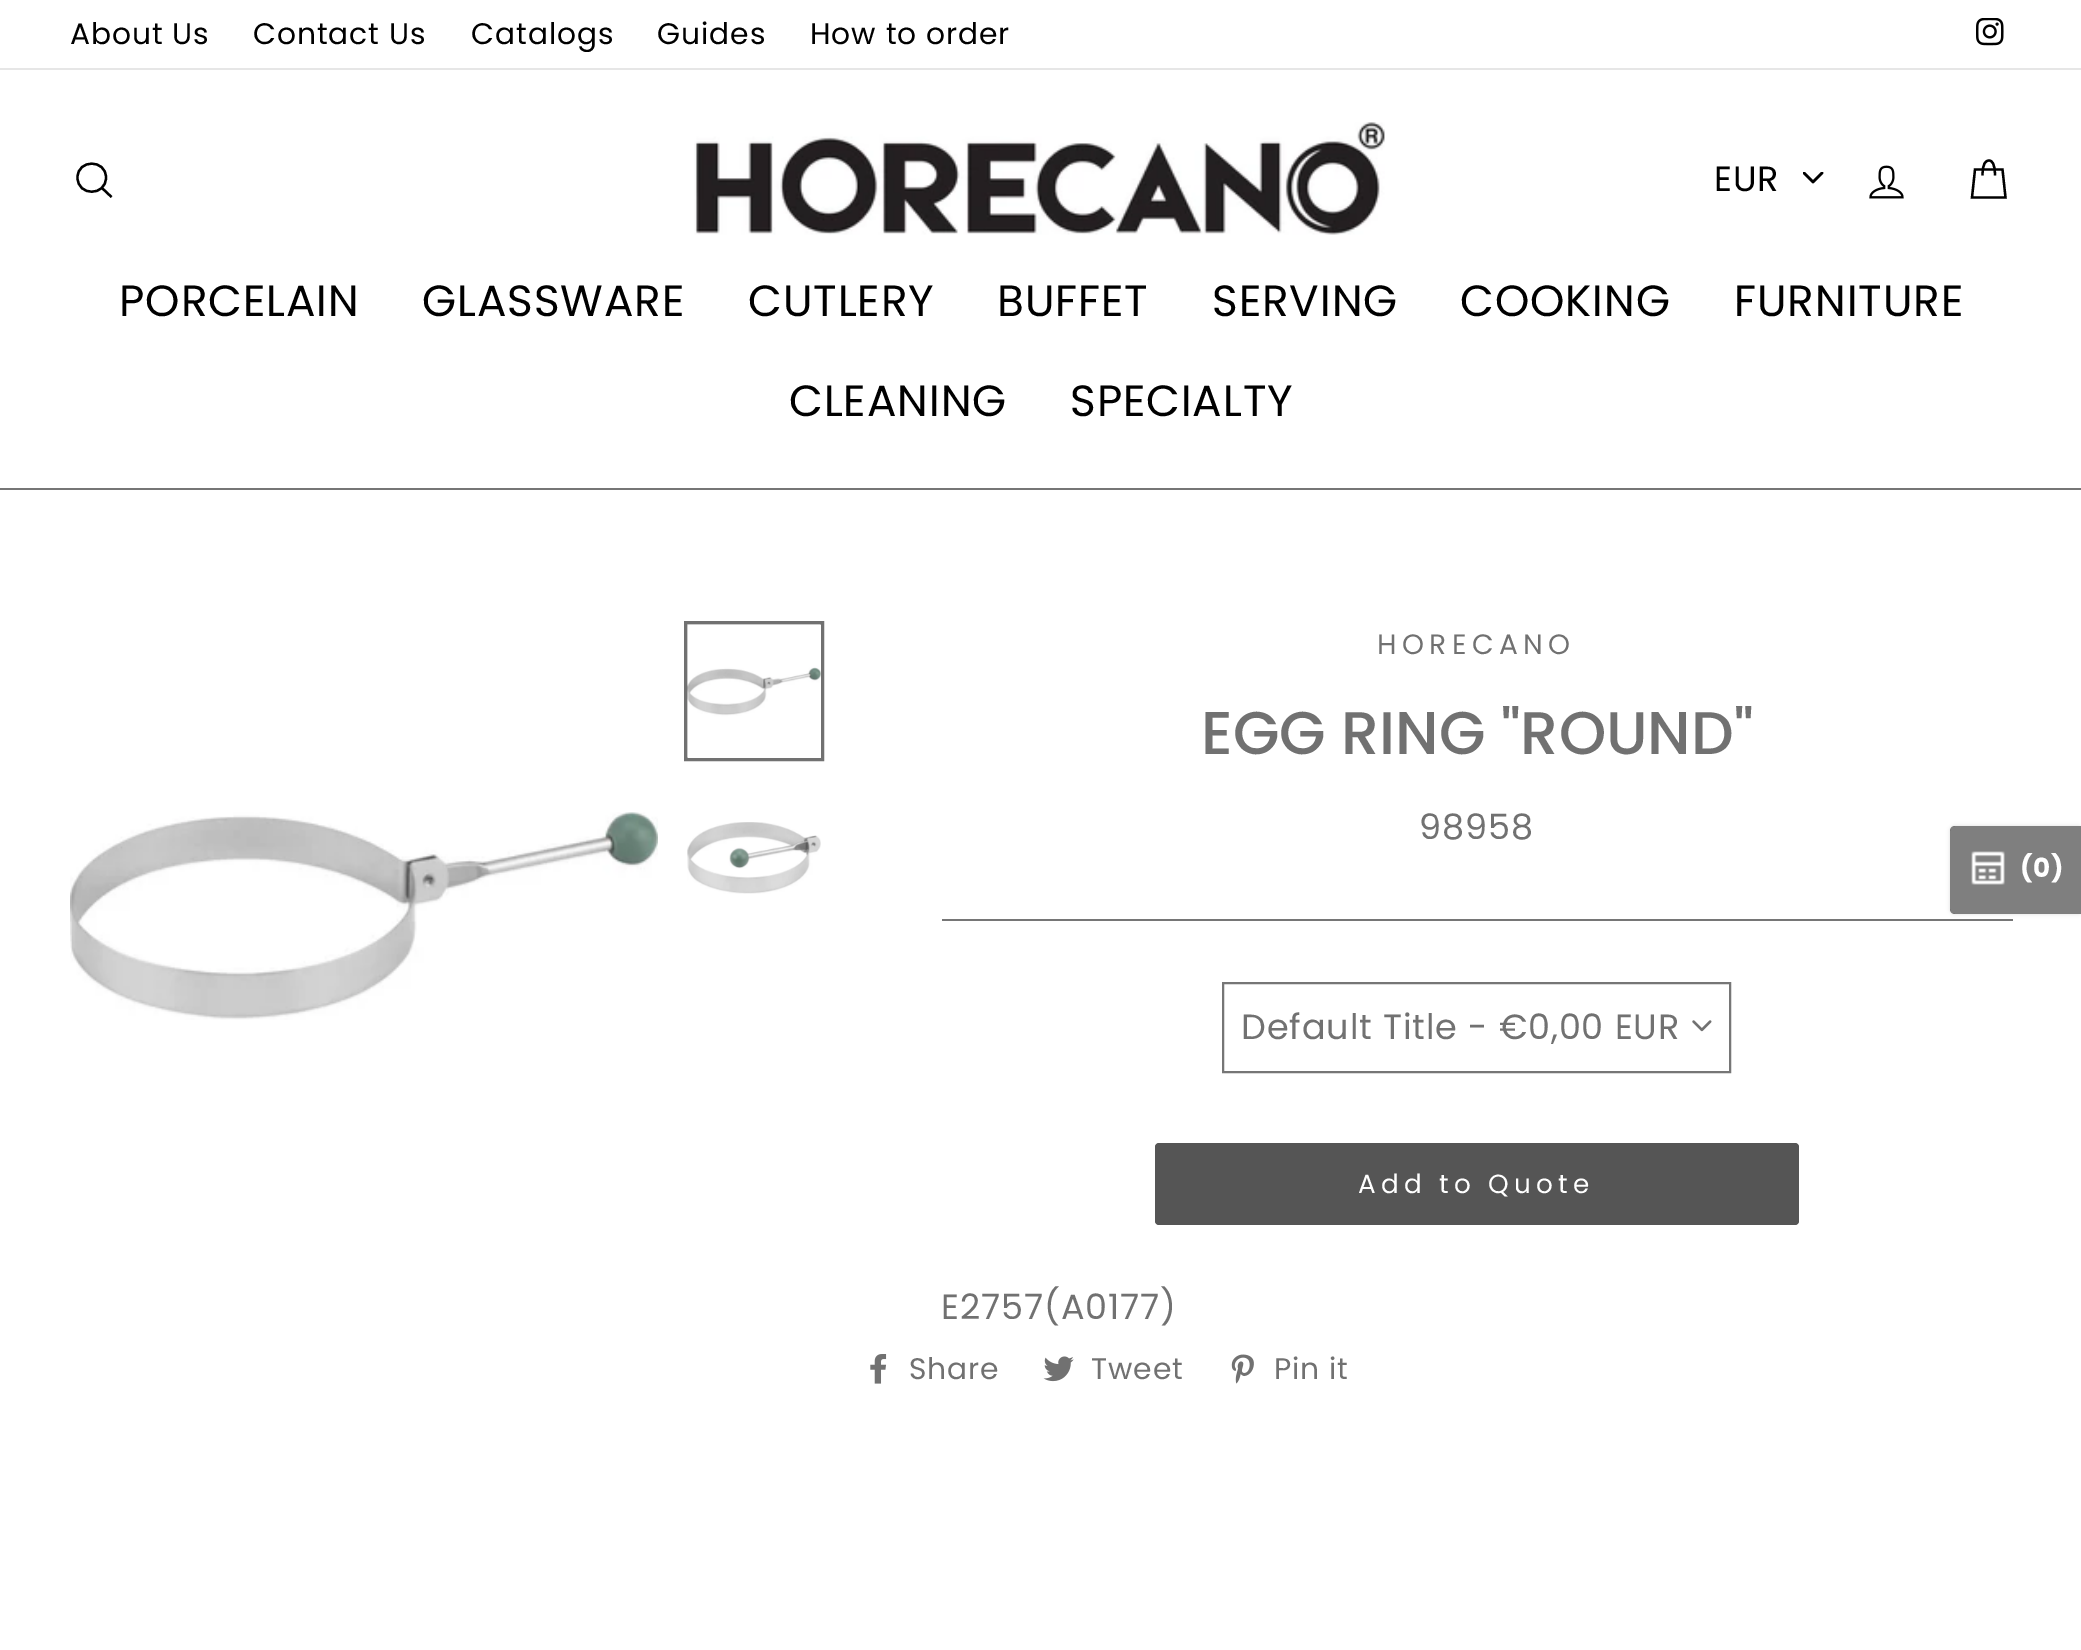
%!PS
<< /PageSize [2081 1650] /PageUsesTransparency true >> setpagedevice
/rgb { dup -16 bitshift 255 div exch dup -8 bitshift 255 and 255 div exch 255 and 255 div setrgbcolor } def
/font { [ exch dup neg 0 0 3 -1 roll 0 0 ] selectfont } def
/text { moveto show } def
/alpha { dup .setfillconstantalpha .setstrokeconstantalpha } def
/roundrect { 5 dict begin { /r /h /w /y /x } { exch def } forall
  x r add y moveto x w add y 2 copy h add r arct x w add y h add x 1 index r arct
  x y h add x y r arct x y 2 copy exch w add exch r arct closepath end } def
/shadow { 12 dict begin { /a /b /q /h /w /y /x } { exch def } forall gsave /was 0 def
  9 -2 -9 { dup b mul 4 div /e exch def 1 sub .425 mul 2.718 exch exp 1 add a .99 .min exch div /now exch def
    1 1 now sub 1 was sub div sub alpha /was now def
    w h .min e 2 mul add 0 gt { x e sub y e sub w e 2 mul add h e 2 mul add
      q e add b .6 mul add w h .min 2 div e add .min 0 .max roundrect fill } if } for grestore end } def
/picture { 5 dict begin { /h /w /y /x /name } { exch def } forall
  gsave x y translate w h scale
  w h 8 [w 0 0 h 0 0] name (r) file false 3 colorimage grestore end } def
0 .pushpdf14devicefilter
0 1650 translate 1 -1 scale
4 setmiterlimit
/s1 { /Poppins-Medium 60.25 font 16#717171 rgb } def
16#FFFFFF rgb
0 0 2081 1650 rectfill
/Poppins-Regular 29.75 font
16#000000 rgb
70 44 moveto 0.9 0 (About Us) ashow
253 44 moveto 0.9 0 (Contact Us) ashow
471 44 moveto 0.9 0 (Catalogs) ashow
657 44 moveto 0.9 0 (Guides) ashow
810 44 moveto 0.9 0 (How to order) ashow
(pic1.raw) 1976 18 28 28 picture
16#E6E6E6 rgb
0 68 2081 2 rectfill
16#767676 rgb
0 488 2081 2 rectfill
16#000000 rgb
2.3 setlinewidth
106 177.5 moveto 106 196.5 77.5 196.5 77.5 177.5 curveto 77.5 159 106 159 106 177.5 curveto closepath 111.5 197 moveto 102 188 lineto stroke
(pic2.raw) 694 122 691 113 picture
(pic3.raw) 1803 172 21 12 picture
/Poppins-Regular 35 font
1714 191 moveto 0.9 0 (EUR) ashow
(pic4.raw) 1869 165 35 34 picture
1982.5 175.5 moveto 1982.5 163.5 1985.5 160.5 1989 160.5 curveto 1992 160.5 1995 163.5 1995 175.5 curveto 1975 169.5 moveto 2002.5 169.5 lineto 2005.5 197.5 lineto 1972 197.5 lineto closepath stroke
/Poppins-Regular 43.75 font
119 316 moveto 0.9 0 (PORCELAIN) ashow
422 316 moveto 0.9 0 (GLASSWARE) ashow
748 316 moveto 0.9 0 (CUTLERY) ashow
997 316 moveto 0.9 0 (BUFFET) ashow
1212 316 moveto 0.9 0 (SERVING) ashow
1460 316 moveto 0.9 0 (COOKING) ashow
1734 316 moveto 0.9 0 (FURNITURE) ashow
789 416 moveto 0.9 0 (CLEANING) ashow
1070 416 moveto 0.9 0 (SPECIALTY) ashow
16#717171 rgb
4 setlinewidth
686 623 136 136 rectstroke
16#FFFFFF rgb
688 625 133 133 rectfill
(pic5.raw) 687 624 134 134 picture
(pic6.raw) 687 822 134 72 picture
(pic7.raw) 70 812 588 208 picture
/Poppins-Regular 28 font
16#717171 rgb
1377 654 moveto 5.5 0 (HORECANO) ashow
s1
(EGG RING "ROUND") 1201 754 text
/Poppins-Regular 35 font
1419 839 moveto 0.9 0 (98958) ashow
16#767676 rgb
942 919 1071 2 rectfill
(pic8.raw) 1692 1020 20 12 picture
2 setlinewidth
1223 983 507 89 rectstroke
16#717171 rgb
1241 1039 moveto 0.9 0 (Default Title - €0,00 EUR) ashow
16#555555 rgb
1155 1143 644 82 4 roundrect fill
/Poppins-Regular 26.25 font
16#FFFFFF rgb
1358 1193 moveto 5.25 0 (Add to Quote) ashow
/Poppins-Regular 35 font
16#717171 rgb
941 1319 moveto 0.9 0 (E2757\(A0177\)) ashow
(pic9.raw) 870 1354 17 30 picture
/Poppins-Regular 29.75 font
909 1379 moveto 0.9 0 (Share) ashow
(pic10.raw) 1043 1356 31 26 picture
1091 1379 moveto 0.9 0 (Tweet) ashow
(pic11.raw) 1231 1354 23 30 picture
1274 1379 moveto 0.9 0 (Pin it) ashow
gsave
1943 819 moveto 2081 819 lineto 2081 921 lineto 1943 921 lineto closepath 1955 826 moveto 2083 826 lineto 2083 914 lineto 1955 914 lineto 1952 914 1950 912 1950 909 curveto 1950 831 lineto 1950 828 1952 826 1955 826 curveto closepath eoclip newpath
16#DDDDDD rgb
1950 826 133 88 5 2 1 shadow
grestore
0.5 alpha
16#000000 rgb
1955 826 moveto 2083 826 lineto 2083 914 lineto 1955 914 lineto 1952 914 1950 912 1950 909 curveto 1950 831 lineto 1950 828 1952 826 1955 826 curveto closepath fill
1 alpha
(pic12.raw) 1971 851 34 34 picture
/Poppins-Bold 26.25 font
16#FFFFFF rgb
2020 877 moveto 0.9 0 (\(0\)) ashow
.poppdf14devicefilter showpage
